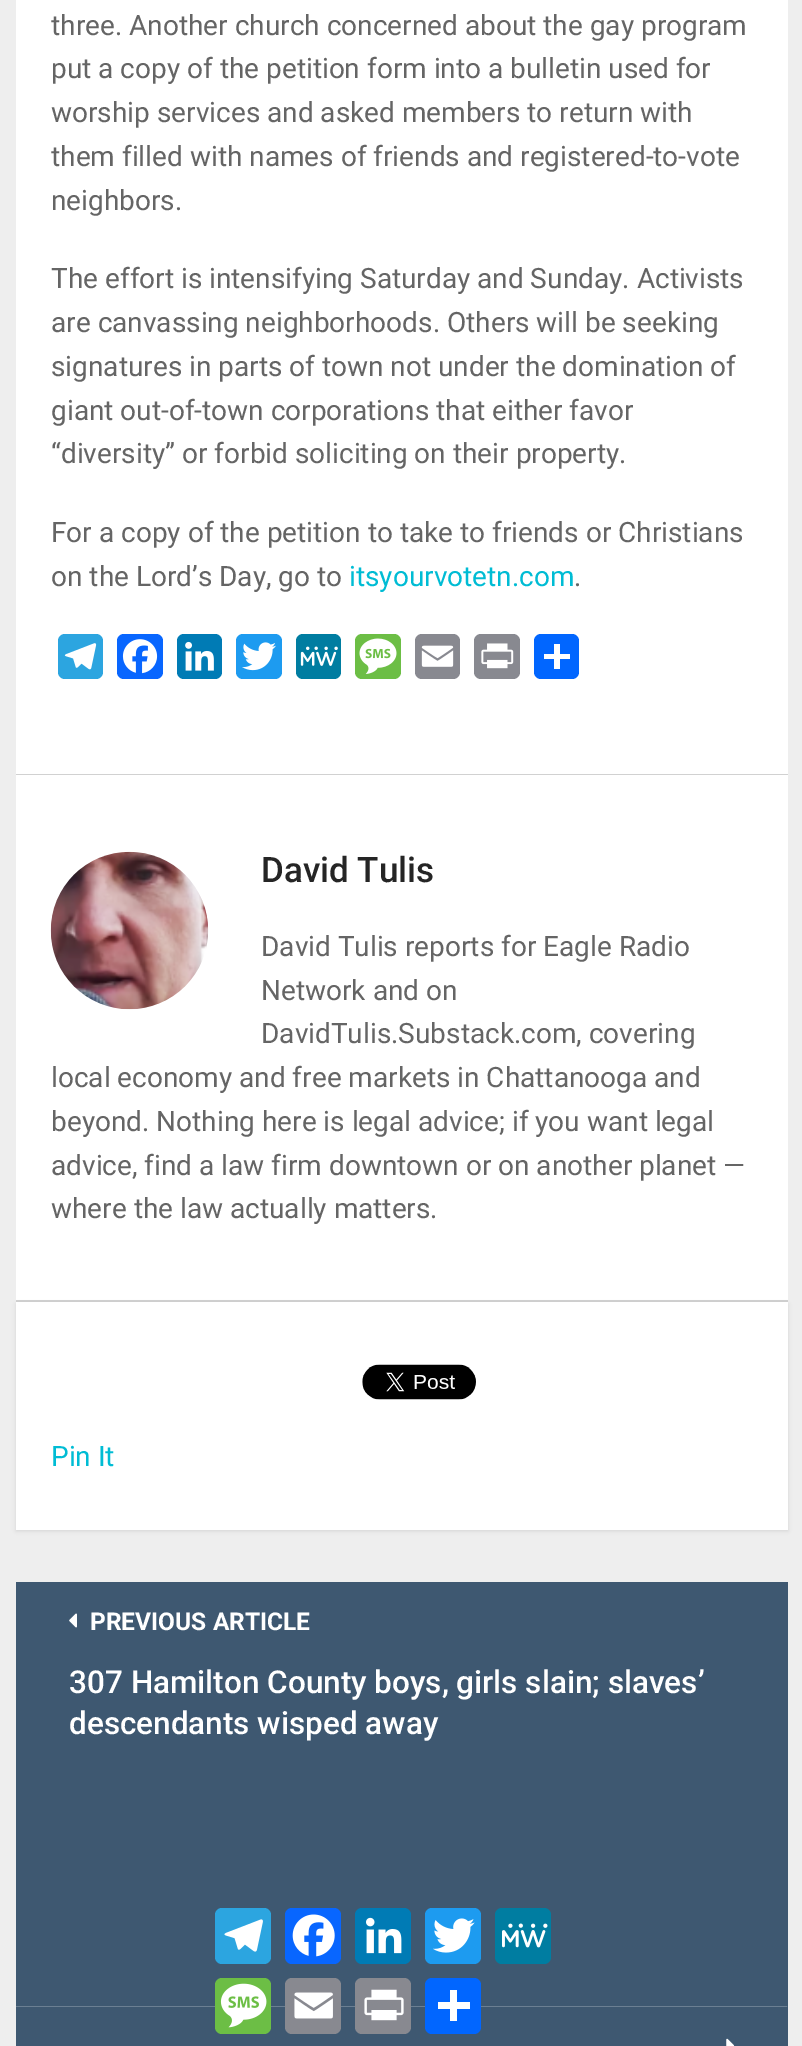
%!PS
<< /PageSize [802 2046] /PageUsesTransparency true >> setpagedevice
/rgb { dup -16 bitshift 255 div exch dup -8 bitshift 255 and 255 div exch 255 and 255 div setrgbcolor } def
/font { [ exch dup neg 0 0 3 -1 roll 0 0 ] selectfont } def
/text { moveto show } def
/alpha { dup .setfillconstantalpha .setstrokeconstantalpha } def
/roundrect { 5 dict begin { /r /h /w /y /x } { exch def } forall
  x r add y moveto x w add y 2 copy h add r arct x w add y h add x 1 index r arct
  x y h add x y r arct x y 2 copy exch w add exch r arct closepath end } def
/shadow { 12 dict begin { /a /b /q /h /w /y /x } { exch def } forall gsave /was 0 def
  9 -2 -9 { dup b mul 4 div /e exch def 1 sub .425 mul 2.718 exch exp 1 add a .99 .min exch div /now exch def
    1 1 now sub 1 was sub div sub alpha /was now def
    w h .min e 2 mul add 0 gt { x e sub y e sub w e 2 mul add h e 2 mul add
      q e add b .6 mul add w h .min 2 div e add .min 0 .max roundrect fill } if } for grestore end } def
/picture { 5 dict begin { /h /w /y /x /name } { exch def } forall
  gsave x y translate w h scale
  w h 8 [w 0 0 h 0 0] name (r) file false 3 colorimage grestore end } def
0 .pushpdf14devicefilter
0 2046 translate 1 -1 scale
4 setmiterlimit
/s1 { /Roboto-Regular 28 font 16#656565 rgb } def
/s2 { /Roboto-Regular 28 font 16#00BCD4 rgb } def
/s3 { /Roboto-Medium 35 font 16#252525 rgb } def
/s4 { /Roboto-Bold 24.5 font 16#FFFFFF rgb } def
/s5 { /Roboto-Medium 31.5 font 16#FFFFFF rgb } def
16#EEEEEE rgb
0 0 802 2046 rectfill
16#FFFFFF rgb
16 0 772 774 rectfill
16#D1D1D1 rgb
16 774 772 1 rectfill
s1
(three. Another church concerned about the gay program) 51 35 text
(put a copy of the petition form into a bulletin used for) 51 78 text
(worship services and asked members to return with) 51 122 text
(them filled with names of friends and registered-to-vote) 51 166 text
(neighbors.) 51 210 text
(The effort is intensifying Saturday and Sunday. Activists) 51 288 text
(are canvassing neighborhoods. Others will be seeking) 51 332 text
(signatures in parts of town not under the domination of) 51 376 text
(giant out-of-town corporations that either favor) 51 420 text
(“diversity” or forbid soliciting on their property.) 51 463 text
(For a copy of the petition to take to friends or Christians) 51 542 text
(on the Lord’s Day, go to) 51 586 text
s2
(itsyourvotetn.com) 349 586 text
s1
(.) 574 586 text
16#2CA5E0 rgb
58 634 45 45 7 roundrect fill
(pic1.raw) 64 643 33 27 picture
16#0866FF rgb
117 634 46 45 7 roundrect fill
(pic2.raw) 122 639 36 35 picture
16#007BB5 rgb
177 634 45 45 7 roundrect fill
(pic3.raw) 185 641 29 30 picture
16#1D9BF0 rgb
236 634 46 45 7 roundrect fill
(pic4.raw) 242 642 34 29 picture
16#007DA1 rgb
296 634 45 45 7 roundrect fill
(pic5.raw) 300 646 38 20 picture
16#6CBE45 rgb
355 634 46 45 7 roundrect fill
(pic6.raw) 359 638 38 36 picture
16#888990 rgb
415 634 45 45 7 roundrect fill
(pic7.raw) 421 645 33 22 picture
474 634 46 45 7 roundrect fill
(pic8.raw) 481 643 33 26 picture
16#0166FF rgb
534 634 45 45 7 roundrect fill
16#FFFFFF rgb
554 644 6 25 rectfill
544 654 26 5 rectfill
16 775 772 525 rectfill
16#D1D1D1 rgb
16 1300 772 2 rectfill
(pic9.raw) 50 851 159 159 picture
s3
(David Tulis) 261 882 text
s1
(David Tulis reports for Eagle Radio) 261 956 text
(Network and on) 261 1000 text
(DavidTulis.Substack.com, covering) 261 1043 text
(local economy and free markets in Chattanooga and) 51 1087 text
(beyond. Nothing here is legal advice; if you want legal) 51 1131 text
(advice, find a law firm downtown or on another planet —) 51 1175 text
(where the law actually matters.) 51 1218 text
16#000000 rgb
16 1304 772 227 0 2 0.1 shadow
16#FFFFFF rgb
16 1302 772 228 rectfill
(pic10.raw) 362 1364 114 36 picture
s2
(Pin It) 51 1466 text
16#3E5871 rgb
16 1582 772 464 rectfill
(pic11.raw) 69 1613 8 15 picture
s4
(PREVIOUS ARTICLE) 90 1630 text
s5
(307 Hamilton County boys, girls slain; slaves’) 69 1693 text
(descendants wisped away) 69 1734 text
(pic12.raw) 16 2006 772 1 picture
(pic13.raw) 726 2038 9 8 picture
16#2CA5E0 rgb
215 1908 56 56 7 roundrect fill
(pic14.raw) 224 1919 39 33 picture
16#0866FF rgb
285 1908 56 56 7 roundrect fill
(pic15.raw) 292 1914 43 43 picture
16#007BB5 rgb
355 1908 56 56 7 roundrect fill
(pic16.raw) 366 1917 36 37 picture
16#1D9BF0 rgb
425 1908 56 56 7 roundrect fill
(pic17.raw) 433 1918 42 35 picture
16#007DA1 rgb
495 1908 56 56 7 roundrect fill
(pic18.raw) 502 1923 46 25 picture
16#6CBE45 rgb
215 1978 56 56 7 roundrect fill
(pic19.raw) 220 1983 47 45 picture
16#888990 rgb
285 1978 56 56 7 roundrect fill
(pic20.raw) 294 1992 39 27 picture
355 1978 56 56 7 roundrect fill
(pic21.raw) 364 1989 40 32 picture
16#0166FF rgb
425 1978 56 56 7 roundrect fill
16#FFFFFF rgb
450 1990 7 31 rectfill
438 2002 32 7 rectfill
.poppdf14devicefilter showpage
